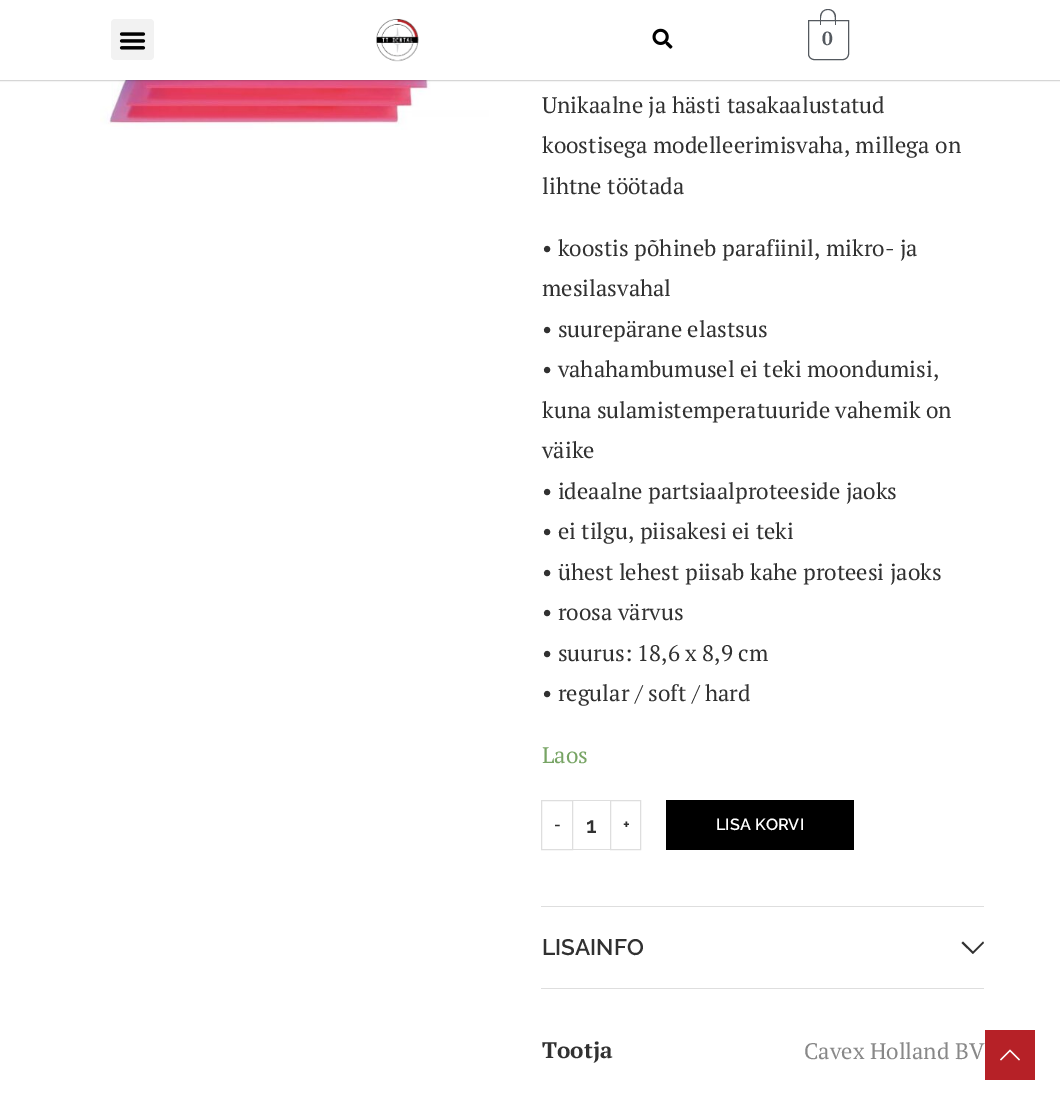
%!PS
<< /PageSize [1060 1104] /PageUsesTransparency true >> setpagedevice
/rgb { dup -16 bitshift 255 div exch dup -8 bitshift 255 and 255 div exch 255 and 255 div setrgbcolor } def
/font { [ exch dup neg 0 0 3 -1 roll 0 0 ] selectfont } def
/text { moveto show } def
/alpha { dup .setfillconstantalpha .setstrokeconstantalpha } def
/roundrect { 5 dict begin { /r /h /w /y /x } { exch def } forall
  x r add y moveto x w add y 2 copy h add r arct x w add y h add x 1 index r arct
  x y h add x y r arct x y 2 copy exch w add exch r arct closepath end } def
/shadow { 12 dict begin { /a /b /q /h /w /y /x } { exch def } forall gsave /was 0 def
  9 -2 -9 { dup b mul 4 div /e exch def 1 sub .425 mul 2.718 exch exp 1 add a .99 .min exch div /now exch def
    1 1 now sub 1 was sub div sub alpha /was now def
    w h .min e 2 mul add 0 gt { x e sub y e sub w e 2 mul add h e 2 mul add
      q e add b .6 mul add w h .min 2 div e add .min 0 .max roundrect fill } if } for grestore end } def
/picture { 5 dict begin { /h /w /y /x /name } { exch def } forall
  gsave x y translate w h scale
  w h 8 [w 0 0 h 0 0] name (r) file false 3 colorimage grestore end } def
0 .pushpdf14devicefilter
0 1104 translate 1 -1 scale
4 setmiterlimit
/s1 { /PTSerif-Bold 19 font 16#54595F rgb } def
/s2 { /PTSerif-Regular 22.5 font 16#313131 rgb } def
/s3 { /PTSerif-Regular 22.5 font 16#77A464 rgb } def
/s4 { /Raleway-SemiBold 16.25 font 16#313131 rgb } def
/s5 { /Raleway-SemiBold 22.5 font 16#313131 rgb } def
/s6 { /Raleway-SemiBold 16.25 font 16#FFFFFF rgb } def
/s7 { /PTSerif-Bold 22.5 font 16#313131 rgb } def
/s8 { /PTSerif-Regular 22.5 font 16#888888 rgb } def
16#FFFFFF rgb
0 0 1060 1104 rectfill
(pic4.raw) 100 80 389 50 picture
16#000000 rgb
0 0 1060 80 0 1 0.5 shadow
16#FFFFFF rgb
0 0 1060 80 rectfill
16#F2F2F2 rgb
111 19 43 41 4 roundrect fill
(pic1.raw) 119 32 27 18 picture
(pic2.raw) 376 19 43 43 picture
(pic3.raw) 652 28 21 21 picture
16#54595F rgb
808.5 20.5 moveto 848.5 20.5 lineto 848.5 54 lineto 848.5 57 846 59.5 843 59.5 curveto 814 59.5 lineto 811 59.5 808.5 57 808.5 54 curveto closepath stroke
828 9 moveto 832.5 9 836 12.5 836 17 curveto 836 25 lineto 820 25 lineto 820 17 lineto 820 12.5 823.5 9 828 9 curveto closepath 828 10 moveto 836 10 835 19.5 835 25 curveto 821 25 lineto 821 19.5 819.5 10 828 10 curveto closepath eofill
s1
(0) 822 45 text
s2
(Unikaalne ja hästi tasakaalustatud) 542 113 text
(koostisega modelleerimisvaha, millega on) 542 153 text
(lihtne töötada) 542 194 text
(• koostis põhineb parafiinil, mikro- ja) 542 256 text
(mesilasvahal) 542 296 text
(• suurepärane elastsus) 542 337 text
(• vahahambumusel ei teki moondumisi,) 542 377 text
(kuna sulamistemperatuuride vahemik on) 542 418 text
(väike) 542 458 text
(• ideaalne partsiaalproteeside jaoks) 542 499 text
(• ei tilgu, piisakesi ei teki) 542 539 text
(• ühest lehest piisab kahe proteesi jaoks) 542 580 text
(• roosa värvus) 542 620 text
(• suurus: 18,6 x 8,9 cm) 542 661 text
(• regular / soft / hard) 542 701 text
s3
(Laos) 542 763 text
16#DEDEDE rgb
541.5 800.5 31 49 rectstroke
s4
(-) 554 830 text
16#DEDEDE rgb
573 800 37 1 rectfill
573 849 37 1 rectfill
s5
(1) 586 833 text
16#DEDEDE rgb
610.5 800.5 30 49 rectstroke
s4
(+) 623 830 text
16#000000 rgb
666 800 188 50 rectfill
s6
(LISA KORVI) 716 830 text
16#DEDEDE rgb
541 906 443 1 rectfill
541 988 443 1 rectfill
s5
(LISAINFO) 542 955 text
984 943 moveto 983 941.5 lineto 973 951.5 lineto 963 941.5 lineto 961.5 943 lineto 973 954 lineto closepath fill
s7
(Tootja) 542 1058 text
s8
(Cavex Holland BV) 804 1059 text
16#B62127 rgb
985 1030 50 50 rectfill
16#FFFFFF rgb
1010 1049.5 moveto 1000 1059.5 lineto 1001 1060.5 lineto 1010 1051.5 lineto 1019 1060.5 lineto 1020 1059.5 lineto closepath fill
.poppdf14devicefilter showpage
